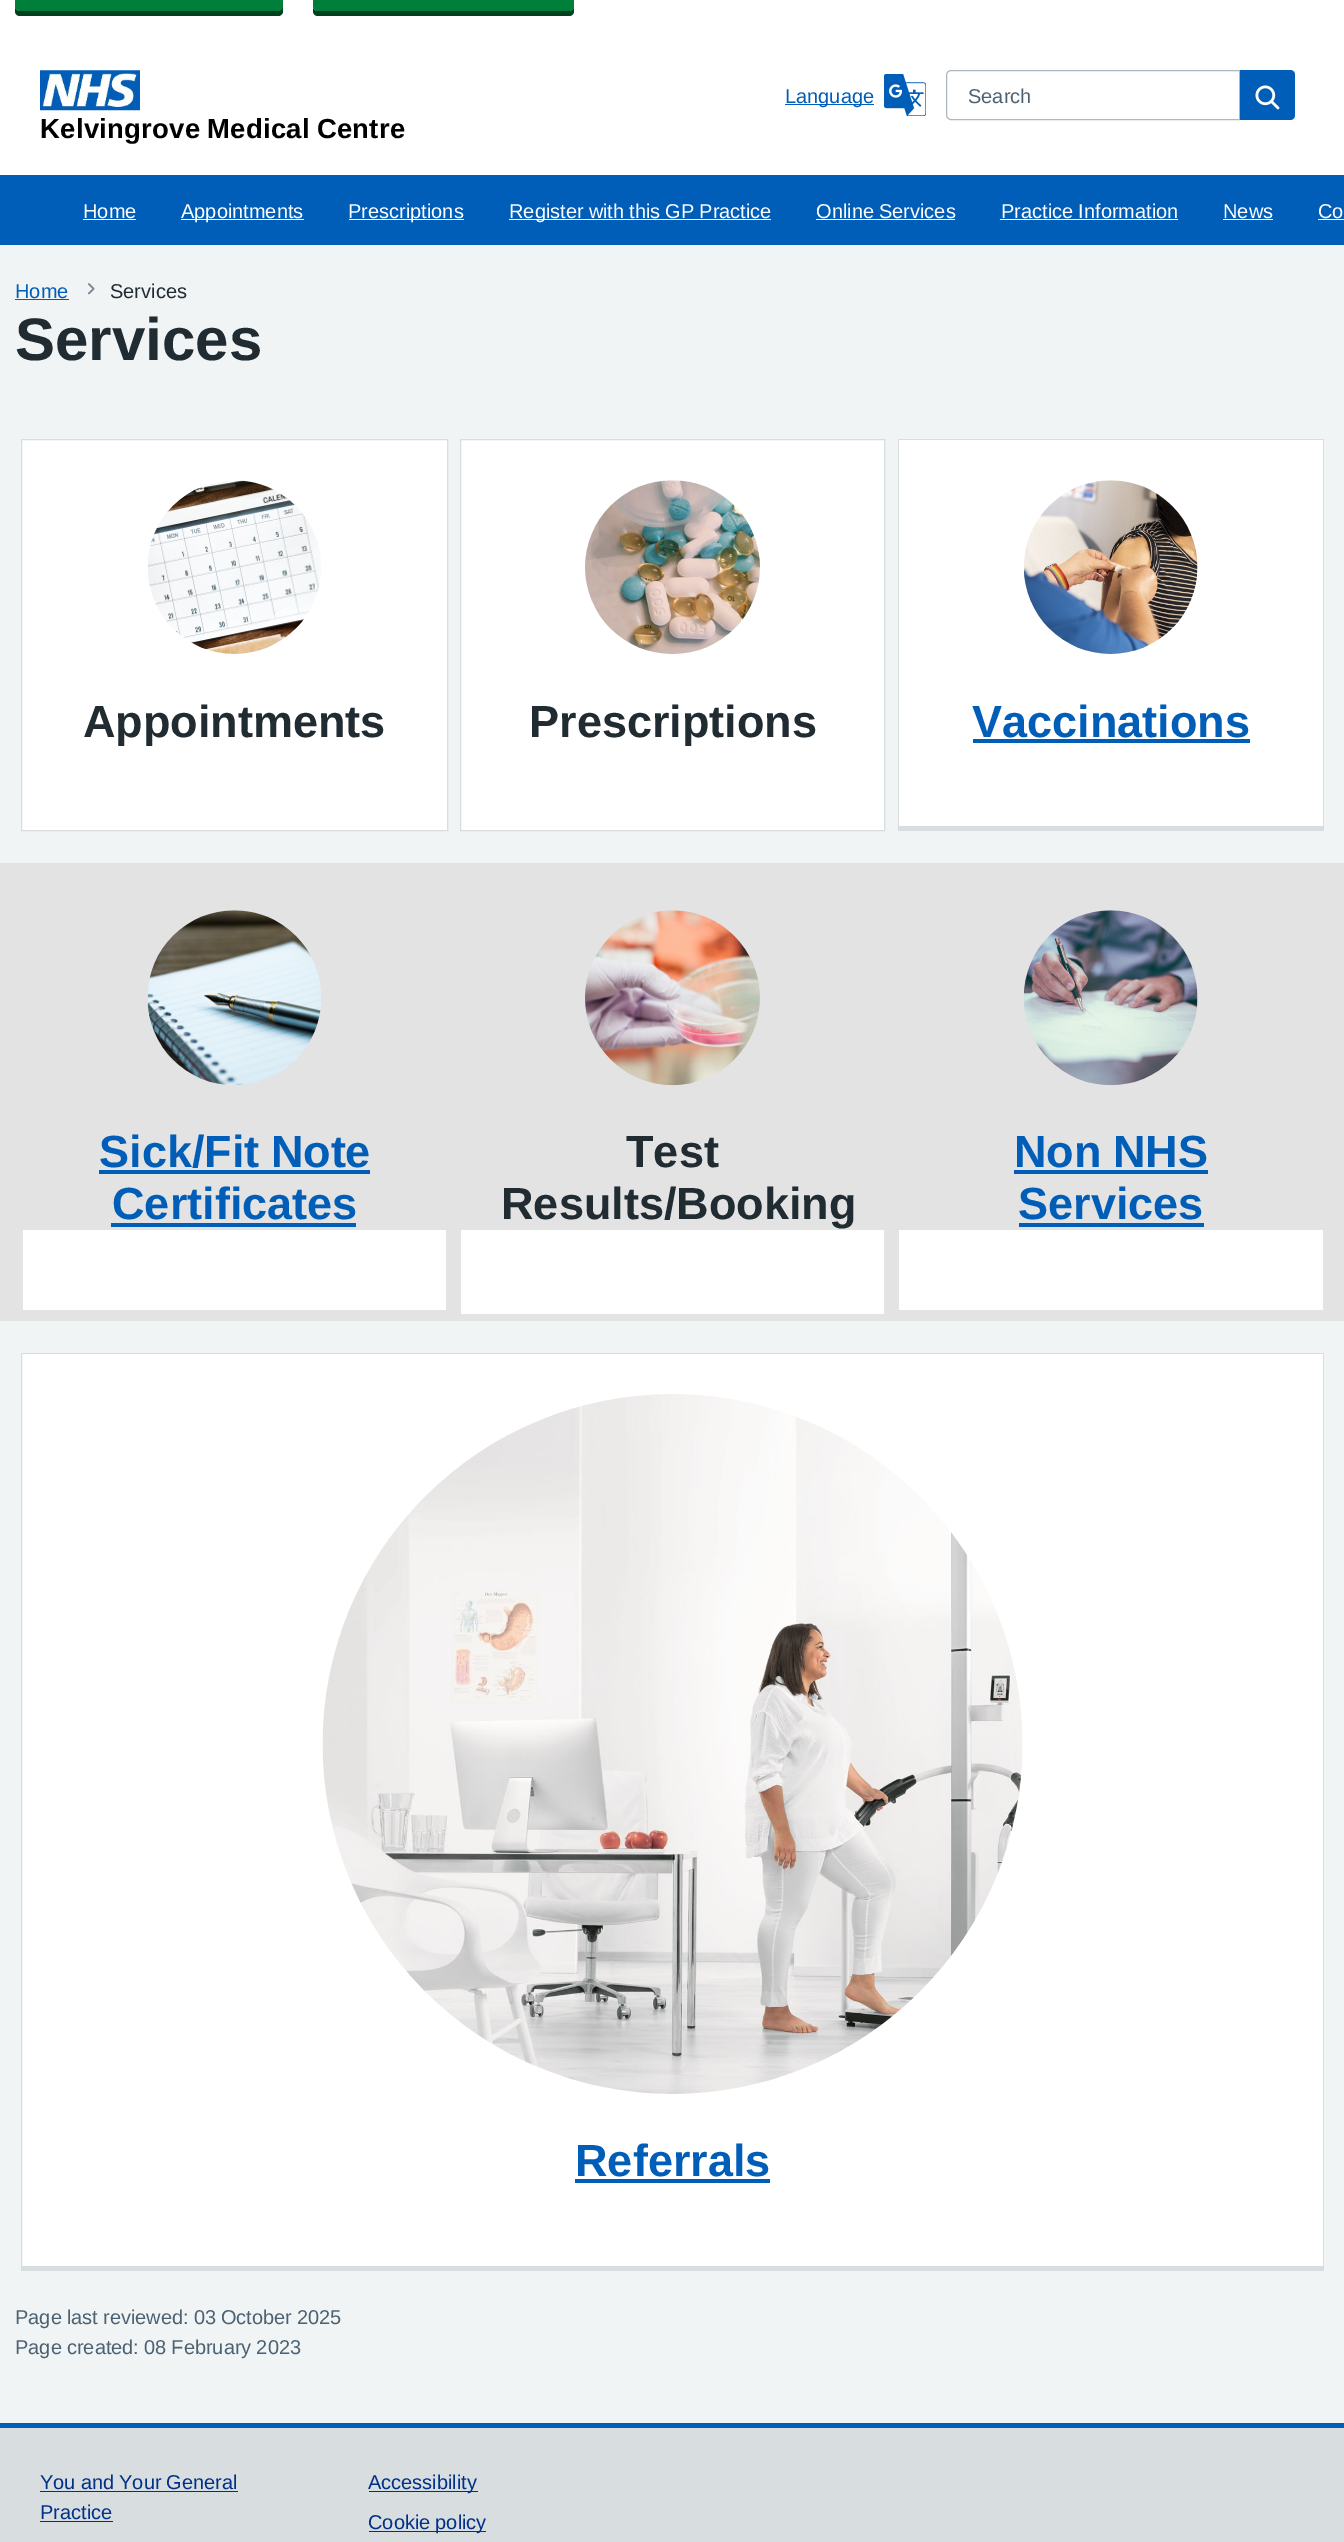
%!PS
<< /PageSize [1344 2542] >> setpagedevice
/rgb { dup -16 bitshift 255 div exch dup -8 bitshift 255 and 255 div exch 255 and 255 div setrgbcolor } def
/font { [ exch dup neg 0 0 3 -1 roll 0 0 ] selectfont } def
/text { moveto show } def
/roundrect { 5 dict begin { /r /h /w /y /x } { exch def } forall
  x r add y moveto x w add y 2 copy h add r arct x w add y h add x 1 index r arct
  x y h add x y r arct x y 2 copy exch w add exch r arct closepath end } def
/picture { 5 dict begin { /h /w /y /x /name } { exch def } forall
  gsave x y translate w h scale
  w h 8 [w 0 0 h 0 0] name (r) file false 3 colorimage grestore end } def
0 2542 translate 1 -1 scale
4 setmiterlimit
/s1 { /LiberationSans-Regular 20 font 16#005EB8 rgb } def
/s2 { /LiberationSans-Regular 20 font 16#4C6272 rgb } def
/s3 { /LiberationSans-Regular 20 font 16#FFFFFF rgb } def
/s4 { /LiberationSans-Regular 20 font 16#212B32 rgb } def
/s5 { /LiberationSans-Bold 60 font 16#212B32 rgb } def
/s6 { /LiberationSans-Bold 45 font 16#212B32 rgb } def
/s7 { /LiberationSans-Bold 45 font 16#005EB8 rgb } def
/s8 { /LiberationSans-Regular 20 font 16#003087 rgb } def
16#F0F4F5 rgb
0 0 1344 2542 rectfill
16#FFFFFF rgb
0 0 1344 175 rectfill
16#00401E rgb
15 6 moveto 15 11 lineto 15 14 17 16 20 16 curveto 278 16 lineto 281 16 283 14 283 11 curveto 283 -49 lineto 282 -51 lineto 282 6 lineto 282 9 280 11 278 11 curveto 20 11 lineto 17 11 15 9 15 6 curveto closepath fill
16#007F3B rgb
15 -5 268 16 5 roundrect fill
16#00401E rgb
313 8 moveto 313 11 lineto 313 14 315 16 318 16 curveto 569 16 lineto 572 16 574 14 574 11 curveto 574 -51 lineto 574 6 lineto 574 9 572 11 569 11 curveto 318 11 lineto 316 11 314 10 313 8 curveto closepath fill
16#007F3B rgb
313 -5 261 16 5 roundrect fill
16#005EB8 rgb
785 104 89 1 rectfill
s1
(Language) 785 103 text
(pic1.raw) 884 74 42 42 picture
16#AEB7BD rgb
951 70.5 moveto 1239.5 70.5 lineto 1239.5 119.5 lineto 951 119.5 lineto 948.5 119.5 946.5 117.5 946.5 115 curveto 946.5 75 lineto 946.5 72.5 948.5 70.5 951 70.5 curveto closepath stroke
s2
(Search) 968 103 text
16#005EB8 rgb
1240 70 moveto 1290 70 lineto 1293 70 1295 72 1295 75 curveto 1295 115 lineto 1295 118 1293 120 1290 120 curveto 1240 120 lineto closepath fill
(pic2.raw) 1255 85 25 25 picture
(pic3.raw) 40 70 100 41 picture
/LiberationSans-Bold 27.5 font
16#000000 rgb
40 138 moveto -1 0 32 0.25 0 (Kelvingrove Medical Centre) awidthshow
16#005EB8 rgb
0 175 1344 70 rectfill
s3
(Home) 83 218 text
83 219 53 1 rectfill
181 219 123 1 rectfill
(Appointments) 181 218 text
349 219 115 1 rectfill
(Prescriptions) 348 218 text
509 219 262 1 rectfill
509 218 moveto -0.5 0 32 (Register with this GP Practice) widthshow
816 218 moveto -0.5 0 32 (Online Services) widthshow
816 219 139 1 rectfill
1001 218 moveto -0.5 0 32 (Practice Information) widthshow
1000 219 178 1 rectfill
(News) 1223 218 text
1223 219 50 1 rectfill
1318 218 moveto -0.5 0 32 (Co) widthshow
1318 219 26 1 rectfill
s1
(Home) 15 298 text
15 299 54 1 rectfill
(pic4.raw) 88 283 7 12 picture
s4
(Services) 110 298 text
s5
(Services) 15 360 text
16#FFFFFF rgb
21.5 439.5 moveto 447.5 439.5 lineto 447.5 830.5 lineto 21.5 830.5 lineto closepath gsave fill grestore
16#D8DDE0 rgb
stroke
(pic5.raw) 147 480 174 174 picture
gsave
23 694 423 52 rectclip
s6
(Appointments) 83 737 text
grestore
16#FFFFFF rgb
460.5 439.5 moveto 884.5 439.5 lineto 884.5 830.5 lineto 460.5 830.5 lineto closepath gsave fill grestore
16#D8DDE0 rgb
stroke
(pic6.raw) 585 480 175 174 picture
gsave
461 694 423 52 rectclip
s6
(Prescriptions) 529 737 text
grestore
16#FFFFFF rgb
899 440 424 386 rectfill
16#D8DDE0 rgb
898 439 426 1 rectfill
1323 439 1 392 rectfill
898 826 426 5 rectfill
898 439 1 392 rectfill
(pic7.raw) 1024 480 174 174 picture
s7
(Vaccinations) 972 737 text
973 739 277 4 rectfill
16#E3E3E3 rgb
0 863 1344 458 rectfill
(pic8.raw) 147 910 174 175 picture
16#005EB8 rgb
99 1167 moveto -1 0 32 (Sick/Fit Note) widthshow
99 1170 271 4 rectfill
(Certificates) 112 1219 text
111 1223 245 4 rectfill
16#FFFFFF rgb
23 1230 423 80 rectfill
(pic9.raw) 585 910 175 176 picture
s6
(Test) 626 1167 text
(Results/Booking) 501 1219 text
16#FFFFFF rgb
461 1230 423 84 rectfill
(pic10.raw) 1024 910 174 176 picture
16#005EB8 rgb
1014 1167 moveto -1 0 32 (Non NHS) widthshow
1014 1170 194 4 rectfill
(Services) 1018 1219 text
1019 1223 185 4 rectfill
16#FFFFFF rgb
899 1230 424 80 rectfill
23 1354 1300 912 rectfill
16#D8DDE0 rgb
21 1353 1303 1 rectfill
1323 1353 1 918 rectfill
21 2266 1303 5 rectfill
21 1353 1 918 rectfill
(pic11.raw) 322 1394 701 700 picture
s7
(Referrals) 575 2176 text
575 2179 195 4 rectfill
/LiberationSans-Regular 20 font
16#4C6272 rgb
15 2324 moveto -0.5 0 32 (Page last reviewed: 03 October 2025) widthshow
15 2354 moveto -0.5 0 32 (Page created: 08 February 2023) widthshow
16#D8DDE0 rgb
0 2428 1344 114 rectfill
16#005EB8 rgb
0 2423 1344 5 rectfill
16#003087 rgb
40 2489 moveto -0.5 0 32 (You and Your General) widthshow
40 2491 198 1 rectfill
(Practice) 40 2519 text
40 2521 73 1 rectfill
369 2491 109 1 rectfill
(Accessibility) 368 2489 text
369 2531 117 1 rectfill
368 2529 moveto -0.5 0 32 (Cookie policy) widthshow
showpage
